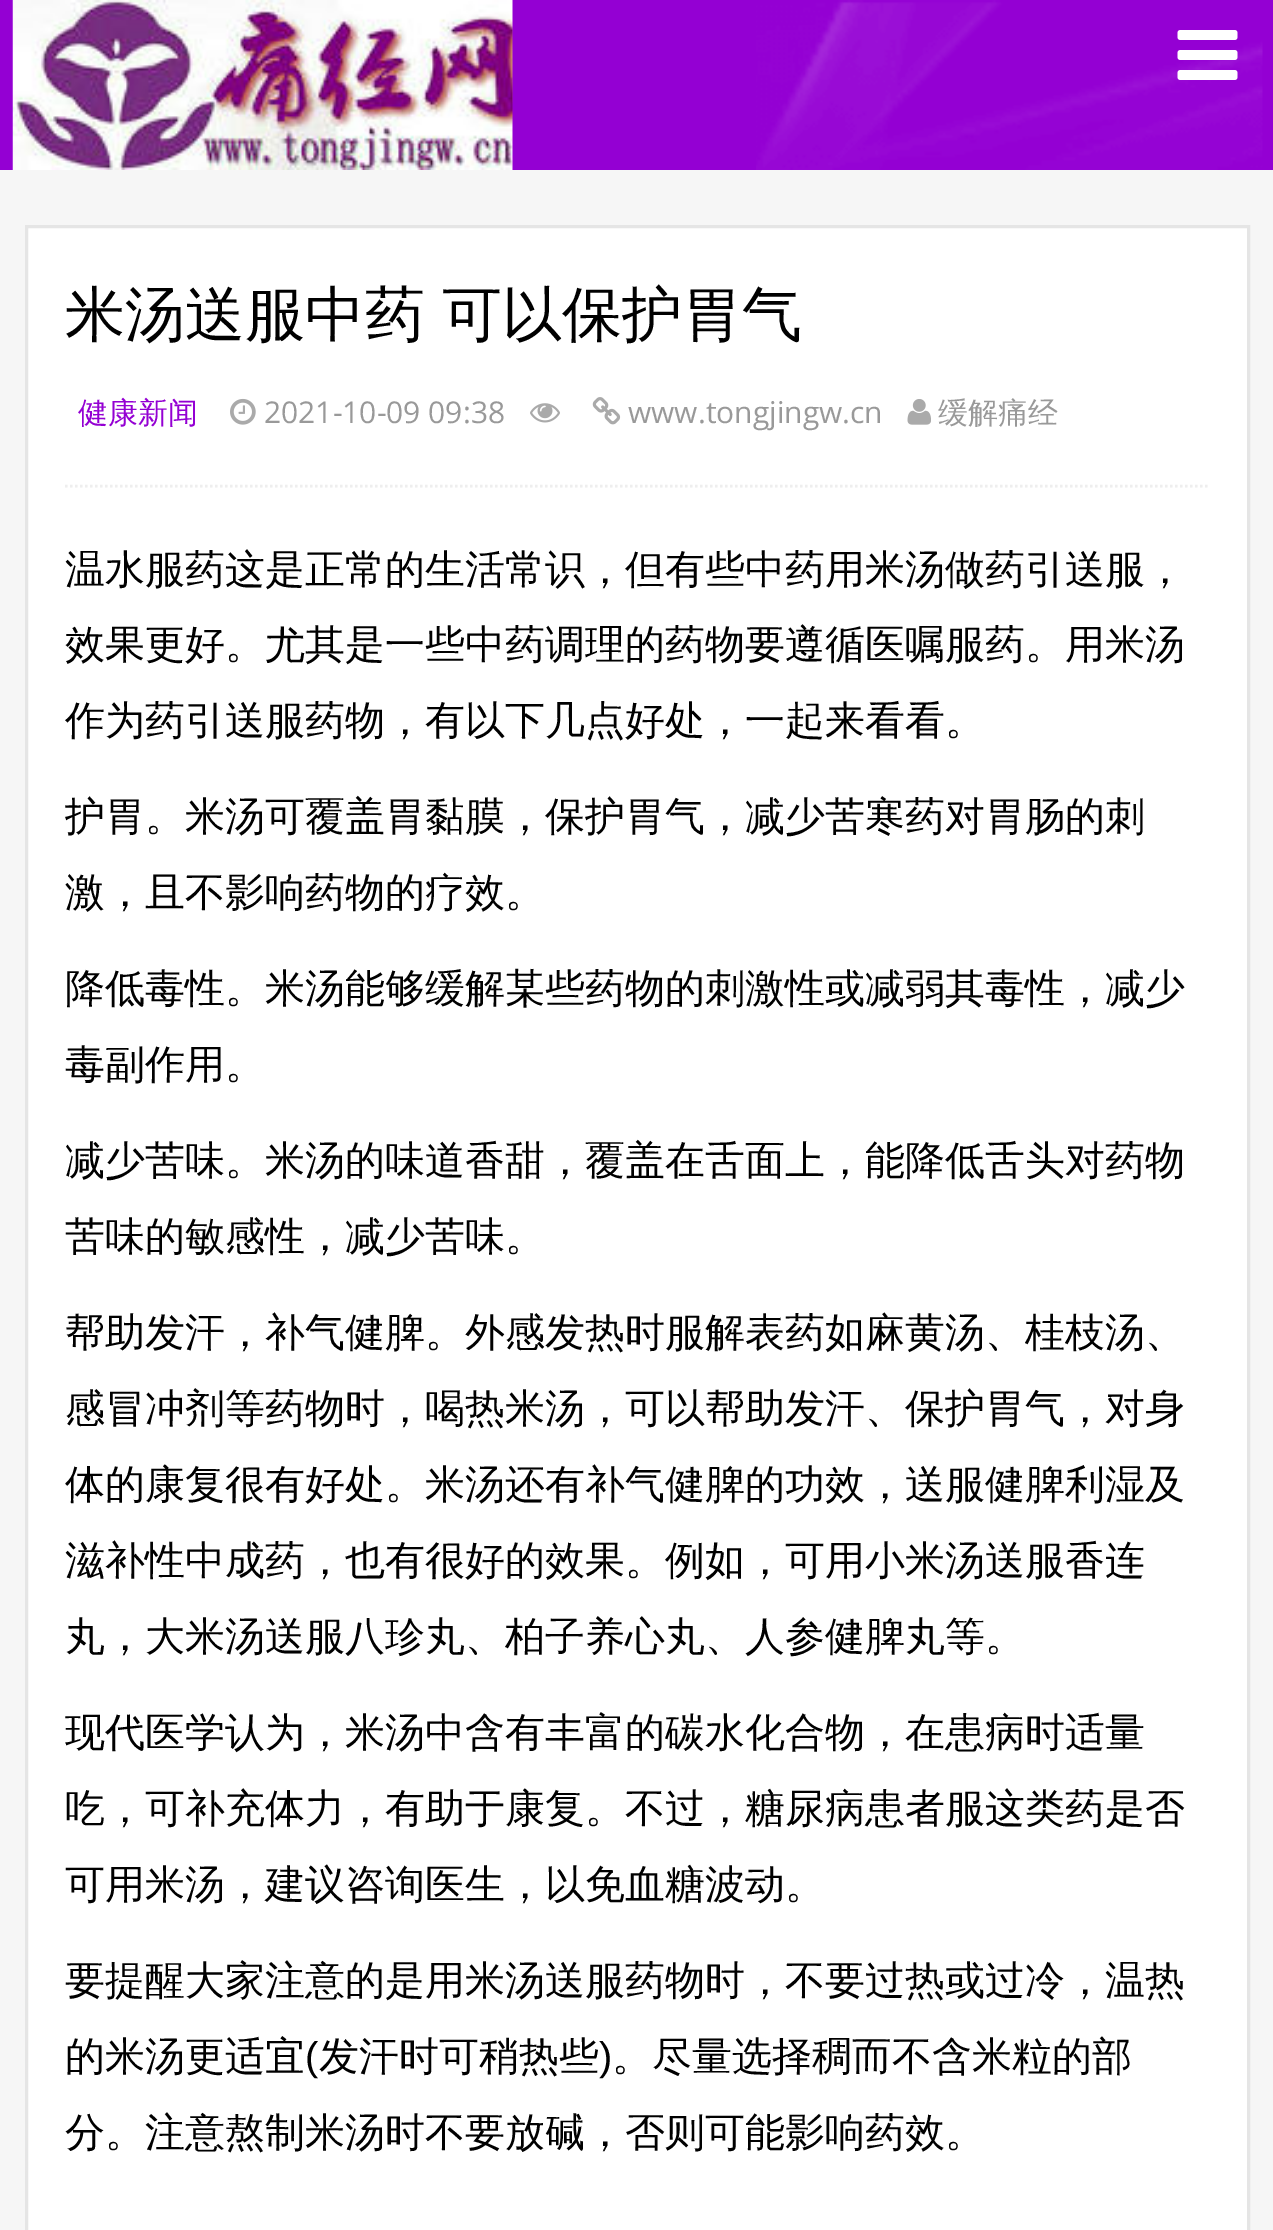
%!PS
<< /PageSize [1273 2230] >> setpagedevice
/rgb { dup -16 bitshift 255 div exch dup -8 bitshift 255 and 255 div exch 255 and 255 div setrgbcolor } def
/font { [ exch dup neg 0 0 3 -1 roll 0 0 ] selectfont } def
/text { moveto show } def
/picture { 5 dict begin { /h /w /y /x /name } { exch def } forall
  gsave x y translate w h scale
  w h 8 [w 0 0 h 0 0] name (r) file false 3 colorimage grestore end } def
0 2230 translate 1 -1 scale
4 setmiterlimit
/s1 { /WenQuanYiZenHei-Medium 30 font 16#9400D3 rgb } def
/s2 { /OpenSans-Regular 30 font 16#999999 rgb } def
/s3 { /WenQuanYiZenHei-Medium 30 font 16#999999 rgb } def
/s4 { /WenQuanYiZenHei-Medium 40 font 16#000000 rgb } def
/s5 { /LiberationSans-Regular 40 font 16#000000 rgb } def
16#F6F6F6 rgb
0 0 1273 2230 rectfill
16#9400D3 rgb
0 0 1273 170 rectfill
(pic1.raw) 756 0 507 170 picture
(pic2.raw) 12 0 501 170 picture
(pic3.raw) 1177 30 61 50 picture
16#FFFFFF rgb
26.5 226.5 moveto 1248.5 226.5 lineto 1248.5 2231.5 lineto 26.5 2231.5 lineto closepath gsave fill grestore
16#E5E5E5 rgb
3 setlinewidth
stroke
/WenQuanYiZenHei-Medium 60 font
16#000000 rgb
65 335 moveto -1 0 32 (米汤送服中药 可以保护胃气) widthshow
s1
(健康新闻) 78 423 text
(pic4.raw) 230 398 26 27 picture
s2
(2021-10-09 09:38) 264 423 text
(pic5.raw) 530 403 30 20 picture
(pic6.raw) 592 397 29 28 picture
(www.tongjingw.cn) 628 423 text
(pic7.raw) 907 399 24 26 picture
s3
(缓解痛经) 938 423 text
16#EEEEEE rgb
2.5 setlinewidth
[2.5 2.5] 0 setdash
65 486 moveto 1210 486 lineto stroke
s4
(温水服药这是正常的生活常识，但有些中药用米汤做药引送服，) 65 583 text
(效果更好。尤其是一些中药调理的药物要遵循医嘱服药。用米汤) 65 658 text
(作为药引送服药物，有以下几点好处，一起来看看。) 65 734 text
(护胃。米汤可覆盖胃黏膜，保护胃气，减少苦寒药对胃肠的刺) 65 830 text
(激，且不影响药物的疗效。) 65 906 text
(降低毒性。米汤能够缓解某些药物的刺激性或减弱其毒性，减少) 65 1002 text
(毒副作用。) 65 1078 text
(减少苦味。米汤的味道香甜，覆盖在舌面上，能降低舌头对药物) 65 1174 text
(苦味的敏感性，减少苦味。) 65 1250 text
(帮助发汗，补气健脾。外感发热时服解表药如麻黄汤、桂枝汤、) 65 1346 text
(感冒冲剂等药物时，喝热米汤，可以帮助发汗、保护胃气，对身) 65 1422 text
(体的康复很有好处。米汤还有补气健脾的功效，送服健脾利湿及) 65 1498 text
(滋补性中成药，也有很好的效果。例如，可用小米汤送服香连) 65 1574 text
(丸，大米汤送服八珍丸、柏子养心丸、人参健脾丸等。) 65 1650 text
(现代医学认为，米汤中含有丰富的碳水化合物，在患病时适量) 65 1746 text
(吃，可补充体力，有助于康复。不过，糖尿病患者服这类药是否) 65 1822 text
(可用米汤，建议咨询医生，以免血糖波动。) 65 1898 text
(要提醒大家注意的是用米汤送服药物时，不要过热或过冷，温热) 65 1994 text
(的米汤更适宜) 65 2070 text
s5
(\() 305 2070 text
s4
(发汗时可稍热些) 319 2070 text
s5
(\)) 599 2070 text
s4
(。尽量选择稠而不含米粒的部) 612 2070 text
(分。注意熬制米汤时不要放碱，否则可能影响药效。) 65 2146 text
showpage
